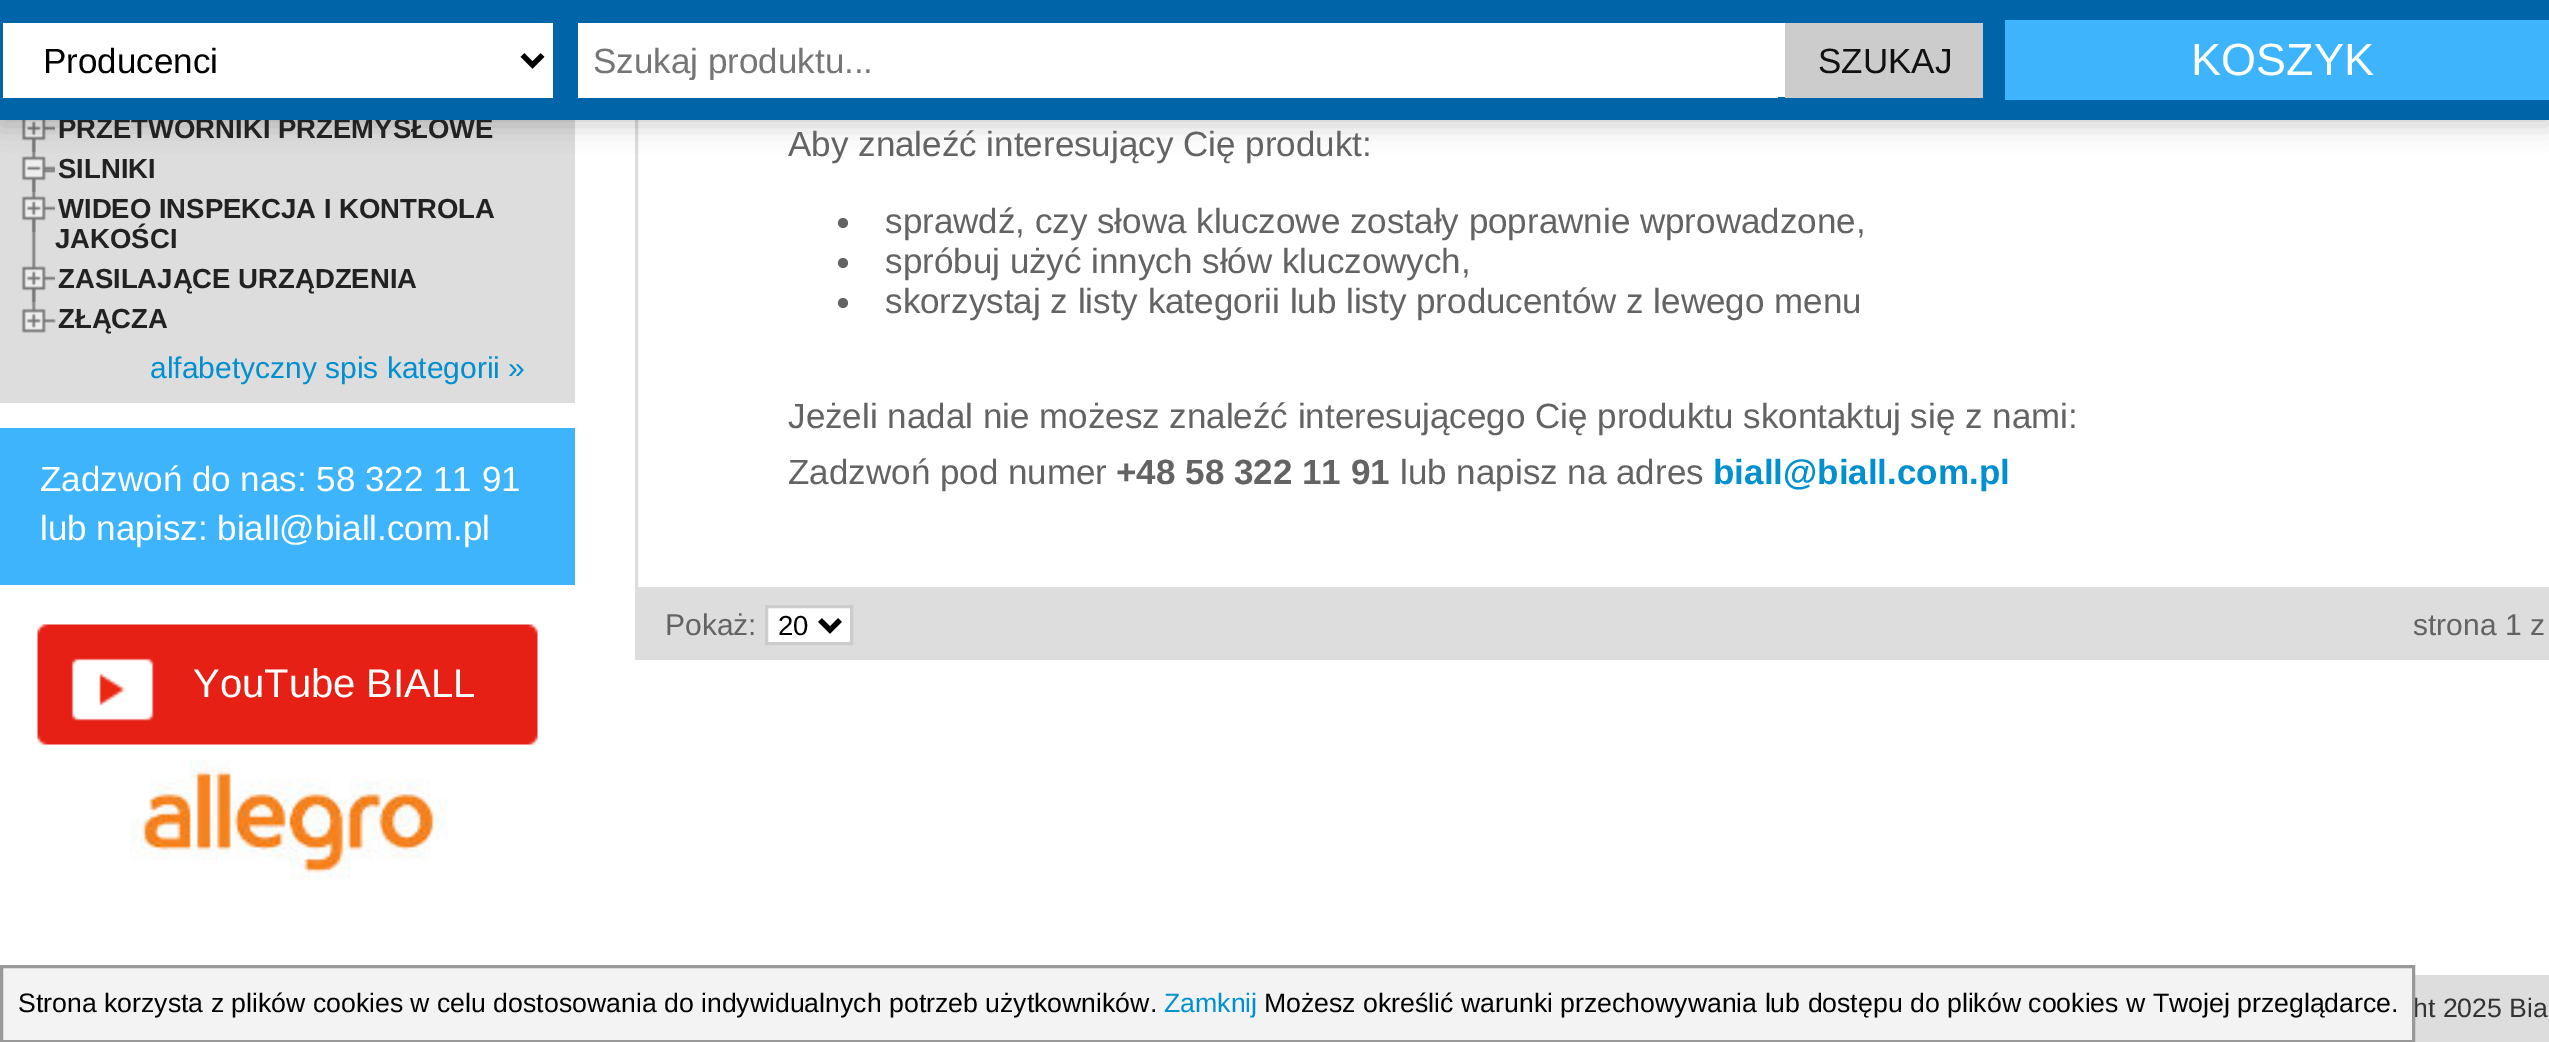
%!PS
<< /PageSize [2549 1042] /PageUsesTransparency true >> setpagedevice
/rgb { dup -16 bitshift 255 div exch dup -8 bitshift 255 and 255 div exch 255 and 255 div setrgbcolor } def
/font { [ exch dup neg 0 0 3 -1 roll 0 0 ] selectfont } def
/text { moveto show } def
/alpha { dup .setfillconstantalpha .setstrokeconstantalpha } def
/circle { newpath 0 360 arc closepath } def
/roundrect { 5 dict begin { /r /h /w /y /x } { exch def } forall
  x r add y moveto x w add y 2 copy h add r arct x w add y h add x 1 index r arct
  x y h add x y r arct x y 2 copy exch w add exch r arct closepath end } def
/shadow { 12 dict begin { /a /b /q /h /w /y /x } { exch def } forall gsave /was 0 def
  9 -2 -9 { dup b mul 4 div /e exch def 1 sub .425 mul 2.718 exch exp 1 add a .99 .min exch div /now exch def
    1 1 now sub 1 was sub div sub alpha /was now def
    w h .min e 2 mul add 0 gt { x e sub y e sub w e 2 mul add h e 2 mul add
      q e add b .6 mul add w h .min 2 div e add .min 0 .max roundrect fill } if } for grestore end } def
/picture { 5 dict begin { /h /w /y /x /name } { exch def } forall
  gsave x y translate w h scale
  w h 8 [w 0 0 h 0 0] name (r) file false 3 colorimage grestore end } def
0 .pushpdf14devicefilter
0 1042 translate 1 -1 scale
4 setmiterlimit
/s1 { /LiberationSans-Bold 27.5 font 16#222222 rgb } def
/s2 { /LiberationSans-Regular 35 font 16#000000 rgb } def
/s3 { /LiberationSans-Regular 35 font 16#757575 rgb } def
/s4 { /LiberationSans-Regular 35 font 16#111111 rgb } def
/s5 { /LiberationSans-Regular 45 font 16#FFFFFF rgb } def
/s6 { /LiberationSans-Regular 30 font 16#008FCF rgb } def
/s7 { /LiberationSans-Regular 35 font 16#FFFFFF rgb } def
/s8 { /LiberationSans-Regular 40 font 16#FFFFFF rgb } def
/s9 { /LiberationSans-Regular 35 font 16#636363 rgb } def
/s10 { /LiberationSans-Bold 35 font 16#636363 rgb } def
/s11 { /LiberationSans-Bold 35 font 16#008FCF rgb } def
/s12 { /LiberationSans-Regular 30 font 16#636363 rgb } def
/s13 { /LiberationSans-Regular 27.5 font 16#000000 rgb } def
/s14 { /LiberationSans-Regular 26.65 font 16#333333 rgb } def
/s15 { /LiberationSans-Regular 26.65 font 16#000000 rgb } def
/s16 { /LiberationSans-Regular 26.65 font 16#008FCF rgb } def
16#FFFFFF rgb
0 0 2549 1042 rectfill
16#DDDDDD rgb
0 120 575 283 rectfill
(pic1.raw) 31 138 5 9 picture
(pic3.raw) 31 147 24 40 picture
(pic2.raw) 21 120 34 32 picture
(pic5.raw) 31 187 5 70 picture
(pic4.raw) 21 156 34 36 picture
3 setlinewidth
636.5 -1.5 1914 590 rectstroke
16#000000 rgb
0 5 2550 120 0 12.5 0.2 shadow
s1
(PRZETWORNIKI PRZEMYSŁOWE) 58 138 text
16#0064A8 rgb
0 0 2549 120 rectfill
16#FFFFFF rgb
3 23 550 75 rectfill
16#000000 rgb
5 setlinewidth
522.5 55 moveto 532.5 65 lineto 542.5 55 lineto stroke
s2
(Producenci) 43 73 text
16#FFFFFF rgb
1778 23 7 74 rectfill
578 23 1200 75 rectfill
gsave
593 40 1170 40 rectclip
s3
(Szukaj produktu...) 593 73 text
grestore
16#CCCCCC rgb
1785 23 198 75 rectfill
s4
(SZUKAJ) 1818 73 text
16#3DB4FC rgb
2005 20 544 80 rectfill
s5
(KOSZYK) 2191 75 text
s1
(SILNIKI) 58 178 text
(pic6.raw) 21 196 34 36 picture
(WIDEO INSPEKCJA I KONTROLA) 58 218 text
(JAKOŚCI) 55 248 text
(pic7.raw) 31 257 5 40 picture
(pic8.raw) 21 297 35 36 picture
(pic6.raw) 21 266 34 36 picture
(ZASILAJĄCE URZĄDZENIA) 58 288 text
(ZŁĄCZA) 58 328 text
s6
(alfabetyczny spis kategorii ») 150 378 text
16#3DB4FC rgb
0 428 575 157 rectfill
s7
(Zadzwoń do nas: 58 322 11 91) 40 491 text
(lub napisz: biall@biall.com.pl) 40 540 text
(pic9.raw) 37 624 501 121 picture
s8
(YouTube BIALL) 193 697 text
(pic10.raw) 130 759 318 121 picture
s9
(Aby znaleźć interesujący Cię produkt:) 788 156 text
843 223 5 circle fill
(sprawdź, czy słowa kluczowe zostały poprawnie wprowadzone,) 885 233 text
843 263 5 circle fill
(spróbuj użyć innych słów kluczowych,) 885 273 text
843 303 5 circle fill
(skorzystaj z listy kategorii lub listy producentów z lewego menu) 885 313 text
(Jeżeli nadal nie możesz znaleźć interesującego Cię produktu skontaktuj się z nami:) 788 428 text
(Zadzwoń pod numer) 788 484 text
s10
(+48 58 322 11 91) 1116 484 text
s9
(lub napisz na adres) 1400 484 text
s11
(biall@biall.com.pl) 1713 484 text
16#DDDDDD rgb
635 590 1914 70 rectfill
s12
(Pokaż:) 665 635 text
16#FFFFFF rgb
766.5 606.5 moveto 851.5 606.5 lineto 851.5 643.5 lineto 766.5 643.5 lineto closepath gsave fill grestore
16#CCCCCC rgb
3 setlinewidth
stroke
16#000000 rgb
5 setlinewidth
820 620 moveto 830 630 lineto 840 620 lineto stroke
s13
(20) 778 635 text
s12
(strona 1 z) 2413 635 text
16#DDDDDD rgb
2415 975 134 67 rectfill
s14
(ht 2025 Bia) 2413 1017 text
16#F3F3F3 rgb
1.5 966.5 moveto 2413.5 966.5 lineto 2413.5 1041.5 lineto 1.5 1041.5 lineto closepath gsave fill grestore
16#999999 rgb
3 setlinewidth
stroke
s15
(Strona korzysta z plików cookies w celu dostosowania do indywidualnych potrzeb użytkowników.) 18 1012 text
s16
(Zamknij) 1164 1012 text
s15
(Możesz określić warunki przechowywania lub dostępu do plików cookies w Twojej przeglądarce.) 1264 1012 text
.poppdf14devicefilter showpage
